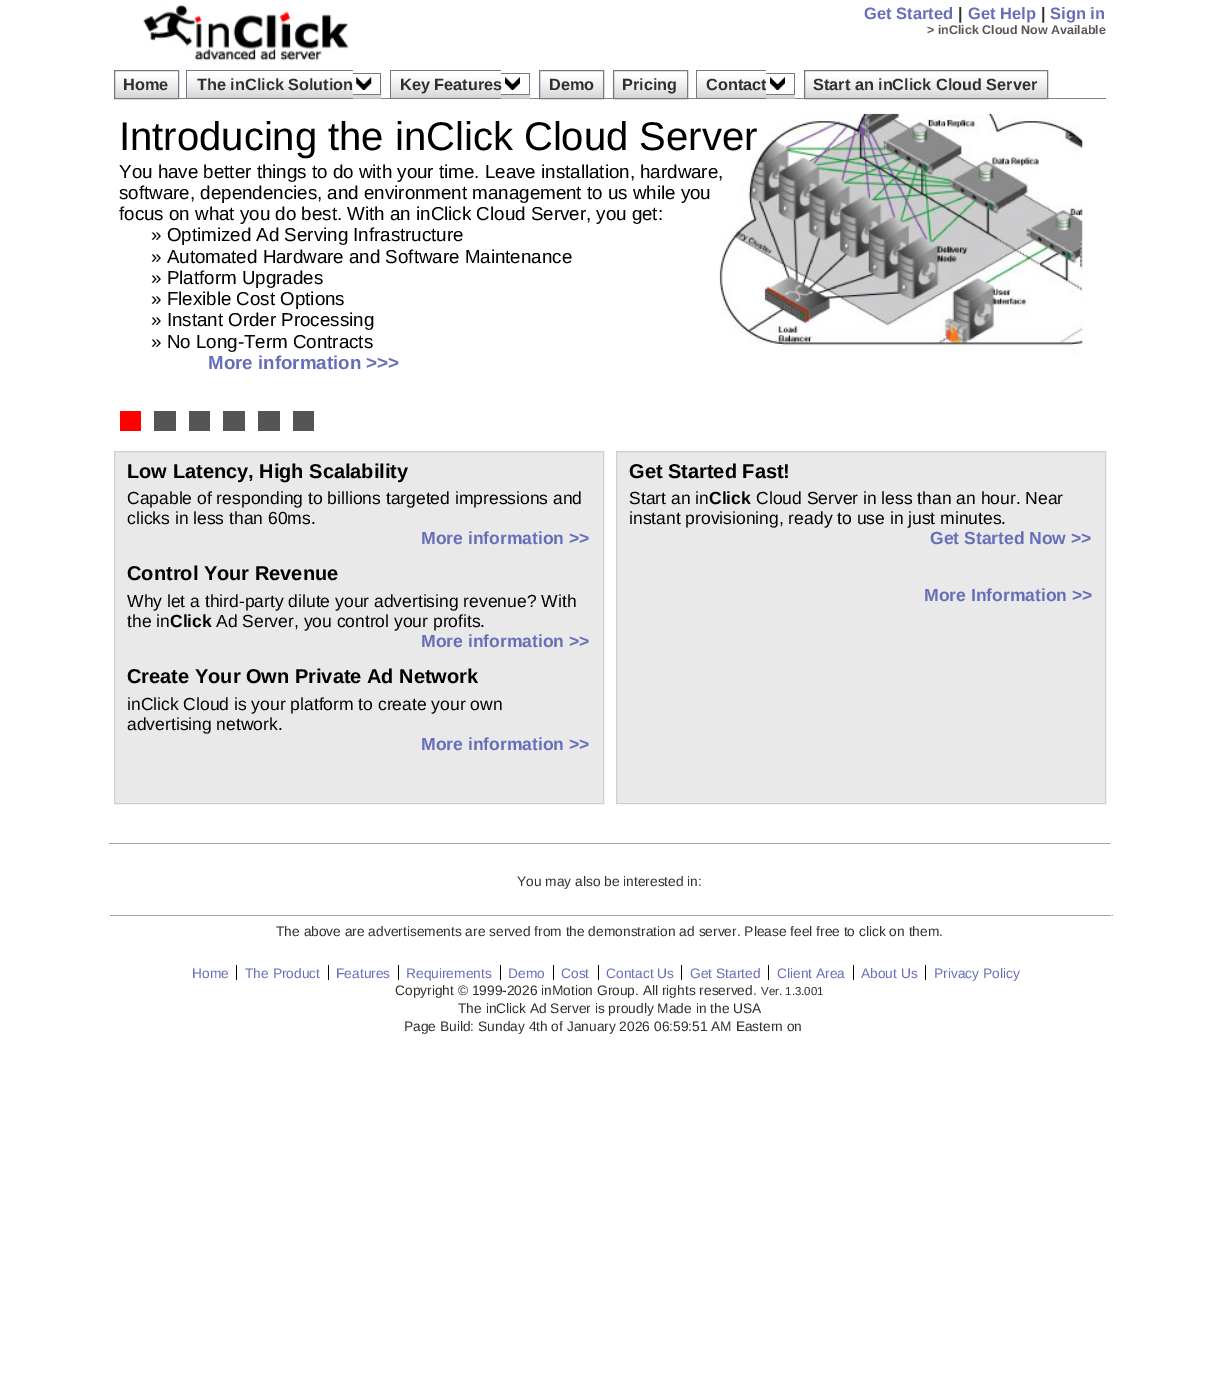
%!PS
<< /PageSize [1218 1386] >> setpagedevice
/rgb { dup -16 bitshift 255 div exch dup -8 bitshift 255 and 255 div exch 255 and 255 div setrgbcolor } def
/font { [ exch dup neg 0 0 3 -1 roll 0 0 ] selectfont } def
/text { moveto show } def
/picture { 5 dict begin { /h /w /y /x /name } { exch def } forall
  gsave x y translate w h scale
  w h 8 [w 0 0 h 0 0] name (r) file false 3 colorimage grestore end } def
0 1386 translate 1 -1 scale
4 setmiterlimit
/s1 { /LiberationSans-Bold 16.5 font 16#666EBA rgb } def
/s2 { /LiberationSans-Bold 16.5 font 16#2F2F2F rgb } def
/s3 { /LiberationSans-Bold 12.5 font 16#5B5656 rgb } def
/s4 { /LiberationSans-Bold 16.25 font 16#2F2F2F rgb } def
/s5 { /LiberationSans-Regular 40 font 16#000000 rgb } def
/s6 { /LiberationSans-Regular 18.75 font 16#000000 rgb } def
/s7 { /LiberationSans-Bold 18.75 font 16#666EBA rgb } def
/s8 { /LiberationSans-Bold 20 font 16#000000 rgb } def
/s9 { /LiberationSans-Regular 17.5 font 16#000000 rgb } def
/s10 { /LiberationSans-Bold 17.5 font 16#666EBA rgb } def
/s11 { /LiberationSans-Bold 17.5 font 16#000000 rgb } def
/s12 { /LiberationSans-Regular 13.75 font 16#2F2F2F rgb } def
/s13 { /LiberationSans-Regular 13.75 font 16#666EBA rgb } def
/s14 { /LiberationSans-Regular 11.5 font 16#2F2F2F rgb } def
16#FFFFFF rgb
0 0 1218 1386 rectfill
(pic1.raw) 143 4 206 57 picture
s1
(Get Started) 864 19 text
s2
(|) 958 19 text
s1
(Get Help) 968 19 text
s2
(|) 1041 19 text
s1
(Sign in) 1050 19 text
s3
(> inClick Cloud Now Available) 927 34 text
16#808080 rgb
179 98 927 1 rectfill
(pic2.raw) 113 77 65 22 picture
(pic3.raw) 187 77 195 22 picture
16#FFFFFF rgb
353 77 27 17 rectfill
(pic4.raw) 356 77 16 13 picture
(pic5.raw) 391 77 139 22 picture
501 77 28 17 rectfill
(pic6.raw) 505 77 15 13 picture
(pic7.raw) 538 77 65 22 picture
(pic8.raw) 612 77 75 22 picture
(pic9.raw) 697 77 98 22 picture
16#777788 rgb
114.5 70.5 64 28 rectstroke
s4
(Home) 123 90 text
(The inClick Solution) 197 90 text
16#777788 rgb
186 70 167 1 rectfill
186 98 167 1 rectfill
186 70 1 29 rectfill
353 73 28 1 rectfill
380 73 1 22 rectfill
353 94 28 1 rectfill
s4
(Key Features) 400 90 text
16#777788 rgb
390 70 111 1 rectfill
390 98 111 1 rectfill
390 70 1 29 rectfill
501 73 29 1 rectfill
529 73 1 22 rectfill
501 94 29 1 rectfill
539.5 70.5 64 28 rectstroke
s4
(Demo) 549 90 text
16#777788 rgb
613.5 70.5 74 28 rectstroke
s4
(Pricing) 622 90 text
(Contact) 706 90 text
16#777788 rgb
696 70 70 1 rectfill
696 98 70 1 rectfill
696 70 1 29 rectfill
16#FFFFFF rgb
766 77 28 17 rectfill
16#777788 rgb
766 73 29 1 rectfill
794 73 1 22 rectfill
766 94 29 1 rectfill
(pic10.raw) 770 77 15 13 picture
(pic11.raw) 803 77 244 22 picture
804.5 70.5 243 28 rectstroke
s4
(Start an inClick Cloud Server) 813 90 text
(pic12.raw) 719 113 364 241 picture
s5
(Introducing the inClick Cloud Server) 119 150 text
s6
(You have better things to do with your time. Leave installation, hardware,) 119 178 text
(software, dependencies, and environment management to us while you) 119 199 text
(focus on what you do best. With an inClick Cloud Server, you get:) 119 220 text
(» Optimized Ad Serving Infrastructure) 151 241 text
(» Automated Hardware and Software Maintenance) 151 263 text
(» Platform Upgrades) 151 284 text
(» Flexible Cost Options) 151 305 text
(» Instant Order Processing) 151 326 text
(» No Long-Term Contracts) 151 348 text
s7
(More information >>>) 208 369 text
16#FF0000 rgb
120 411 21 20 rectfill
16#555555 rgb
154 411 22 20 rectfill
189 411 21 20 rectfill
223 411 22 20 rectfill
258 411 22 20 rectfill
293 411 21 20 rectfill
16#E9E9E9 rgb
114.5 451.5 moveto 603.5 451.5 lineto 603.5 803.5 lineto 114.5 803.5 lineto closepath gsave fill grestore
16#CFCFCF rgb
stroke
s8
(Low Latency, High Scalability) 127 478 text
s9
(Capable of responding to billions targeted impressions and) 127 504 text
(clicks in less than 60ms.) 127 524 text
s10
(More information >>) 421 544 text
s8
(Control Your Revenue) 127 580 text
s9
(Why let a third-party dilute your advertising revenue? With) 127 607 text
(the in) 127 627 text
s11
(Click) 170 627 text
s9
(Ad Server, you control your profits.) 216 627 text
s10
(More information >>) 421 647 text
s8
(Create Your Own Private Ad Network) 127 683 text
s9
(inClick Cloud is your platform to create your own) 127 710 text
(advertising network.) 127 730 text
s10
(More information >>) 421 750 text
16#E9E9E9 rgb
616.5 451.5 moveto 1105.5 451.5 lineto 1105.5 803.5 lineto 616.5 803.5 lineto closepath gsave fill grestore
16#CFCFCF rgb
stroke
s8
(Get Started Fast!) 629 478 text
s9
(Start an in) 629 504 text
s11
(Click) 709 504 text
s9
(Cloud Server in less than an hour. Near) 756 504 text
(instant provisioning, ready to use in just minutes.) 629 524 text
s10
(Get Started Now >>) 930 544 text
(More Information >>) 924 601 text
16#9F9F9F rgb
109 843 1002 1 rectfill
16#EEEEEE rgb
1110 843 1 1 rectfill
s12
(You may also be interested in:) 517 886 text
16#9F9F9F rgb
110 915 1003 1 rectfill
16#EEEEEE rgb
1111 915 1 1 rectfill
s12
(The above are advertisements are served from the demonstration ad server. Please feel free to click on them.) 276 936 text
s13
(Home) 192 978 text
16#000000 rgb
236 965 1 15 rectfill
s13
(The Product) 245 978 text
16#000000 rgb
328 965 1 15 rectfill
s13
(Features) 336 978 text
16#000000 rgb
398 965 1 15 rectfill
s13
(Requirements) 406 978 text
16#000000 rgb
500 965 1 15 rectfill
s13
(Demo) 508 978 text
16#000000 rgb
553 965 1 15 rectfill
s13
(Cost) 561 978 text
16#000000 rgb
598 965 1 15 rectfill
s13
(Contact Us) 606 978 text
16#000000 rgb
681 965 1 15 rectfill
s13
(Get Started) 690 978 text
16#000000 rgb
768 965 1 15 rectfill
s13
(Client Area) 777 978 text
16#000000 rgb
853 965 1 15 rectfill
s13
(About Us) 861 978 text
16#000000 rgb
925 965 1 15 rectfill
s13
(Privacy Policy) 934 978 text
s12
(Copyright © 1999-2026 inMotion Group. All rights reserved.) 395 995 text
s14
(Ver. 1.3.001) 761 995 text
s12
(The inClick Ad Server is proudly Made in the USA) 458 1013 text
(Page Build: Sunday 4th of January 2026 06:59:51 AM Eastern on) 404 1031 text
showpage
